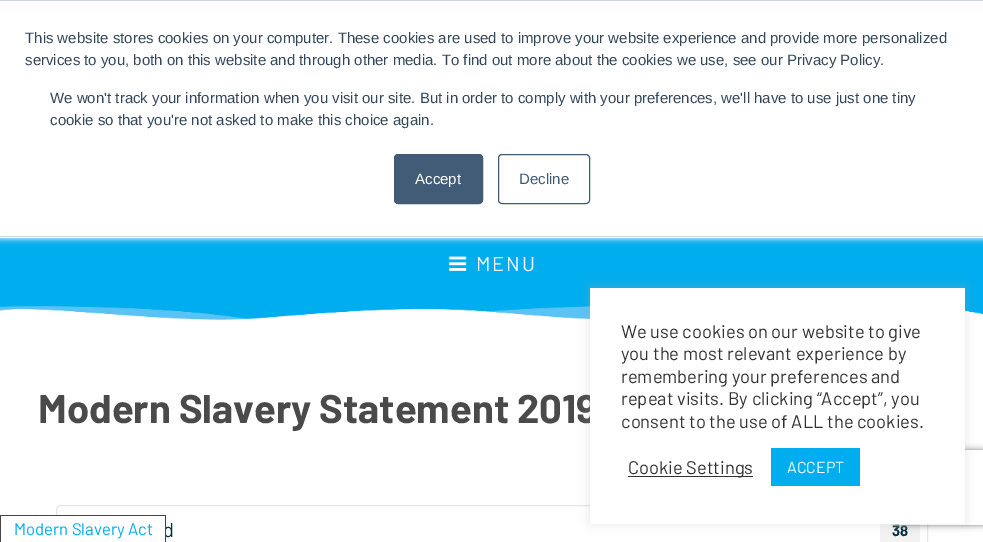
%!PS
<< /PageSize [983 542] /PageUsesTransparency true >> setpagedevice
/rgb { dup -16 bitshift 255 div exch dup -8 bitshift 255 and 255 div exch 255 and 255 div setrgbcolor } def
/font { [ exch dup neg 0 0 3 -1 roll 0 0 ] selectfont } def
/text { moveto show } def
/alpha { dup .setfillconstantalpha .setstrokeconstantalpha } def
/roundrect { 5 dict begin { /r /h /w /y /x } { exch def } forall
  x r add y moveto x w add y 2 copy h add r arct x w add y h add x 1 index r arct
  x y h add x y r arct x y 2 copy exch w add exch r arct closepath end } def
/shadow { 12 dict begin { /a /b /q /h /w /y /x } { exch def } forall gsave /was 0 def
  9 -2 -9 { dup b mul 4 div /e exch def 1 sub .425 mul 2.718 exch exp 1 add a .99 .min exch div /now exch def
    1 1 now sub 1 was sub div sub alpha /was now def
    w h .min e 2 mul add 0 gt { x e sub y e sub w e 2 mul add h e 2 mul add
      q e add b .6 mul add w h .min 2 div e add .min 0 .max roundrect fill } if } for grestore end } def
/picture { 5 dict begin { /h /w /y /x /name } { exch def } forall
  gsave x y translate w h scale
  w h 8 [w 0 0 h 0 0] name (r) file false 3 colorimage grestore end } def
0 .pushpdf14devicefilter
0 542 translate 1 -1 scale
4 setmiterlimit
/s1 { /LiberationSans-Regular 15 font 16#33475B rgb } def
/s2 { /LiberationSans-Regular 15 font 16#FFFFFF rgb } def
/s3 { /LiberationSans-Regular 15 font 16#425B76 rgb } def
/s4 { /Barlow-Bold 40 font 16#4A4A4A rgb } def
/s5 { /Barlow-Regular 20 font 16#00303C rgb } def
/s6 { /Barlow-Bold 15 font 16#00303C rgb } def
/s7 { /Barlow-Regular 16.75 font 16#00ADEF rgb } def
/s8 { /Barlow-Regular 18.3 font 16#333333 rgb } def
/s9 { /Barlow-Regular 16 font 16#FFFFFF rgb } def
16#FFFFFF rgb
0 0 983 542 rectfill
16#00ADEF rgb
0 238 983 65 rectfill
16#EAF0F6 rgb
0 1 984 238 0 3 1 shadow
16#FFFFFF rgb
0 1 983 237 rectfill
16#CBD6E2 rgb
0 0 983 1 rectfill
0 236 983 1 rectfill
s1
(This website stores cookies on your computer. These cookies are used to improve your website experience and provide more personalized) 25 43 text
(services to you, both on this website and through other media. To find out more about the cookies we use, see our Privacy Policy.) 25 65 text
(We won't track your information when you visit our site. But in order to comply with your preferences, we'll have to use just one tiny) 50 103 text
(cookie so that you're not asked to make this choice again.) 50 125 text
16#425B76 rgb
394.5 154.5 88 49 3.5 roundrect gsave fill grestore
stroke
s2
(Accept) 415 184 text
16#425B76 rgb
498.5 154.5 91 49 3.5 roundrect stroke
(Decline) 519 184 text
(pic1.raw) 449 256 18 15 picture
/Barlow-Regular 20 font
16#FFFFFF rgb
476 271 moveto 2 0 (MENU) ashow
(pic2.raw) 0 303 983 17 picture
s4
(Modern Slavery Statement 2019) 38 423 text
16#E5E5E5 rgb
61 505.5 moveto 923 505.5 lineto 925.5 505.5 927.5 507.5 927.5 510 curveto 927.5 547.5 lineto 56.5 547.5 lineto 56.5 510 lineto 56.5 507.5 58.5 505.5 61 505.5 curveto closepath stroke
s5
(d) 163 537 text
16#F2F2F2 rgb
880 516 40 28 4 roundrect fill
s6
(38) 892 536 text
16#FFFFFF rgb
56 516 109 26 rectfill
16#444444 rgb
0 515 166 1 rectfill
165 515 1 27 rectfill
0 515 1 27 rectfill
s7
(Modern Slavery Act) 14 535 text
16#ACABAB rgb
590 286 375 237 0 6 0.3 shadow
gsave
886 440 moveto 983 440 lineto 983 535 lineto 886 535 lineto closepath 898.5 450 moveto 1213.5 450 lineto 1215 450 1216 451 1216 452.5 curveto 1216 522.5 lineto 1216 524 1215 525 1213.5 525 curveto 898.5 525 lineto 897 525 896 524 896 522.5 curveto 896 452.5 lineto 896 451 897 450 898.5 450 curveto closepath eoclip newpath
16#808080 rgb
896 450 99 75 2.5 3 1 shadow
grestore
16#FFFFFF rgb
590 288 375 236 rectfill
s8
(We use cookies on our website to give) 621 338 text
(you the most relevant experience by) 621 360 text
(remembering your preferences and) 621 383 text
(repeat visits. By clicking “Accept”, you) 621 405 text
(consent to the use of ALL the cookies.) 621 428 text
628 476 125 1 rectfill
(Cookie Settings) 628 474 text
16#00ADEF rgb
771 448 89 38 rectfill
s9
(ACCEPT) 787 473 text
.poppdf14devicefilter showpage
